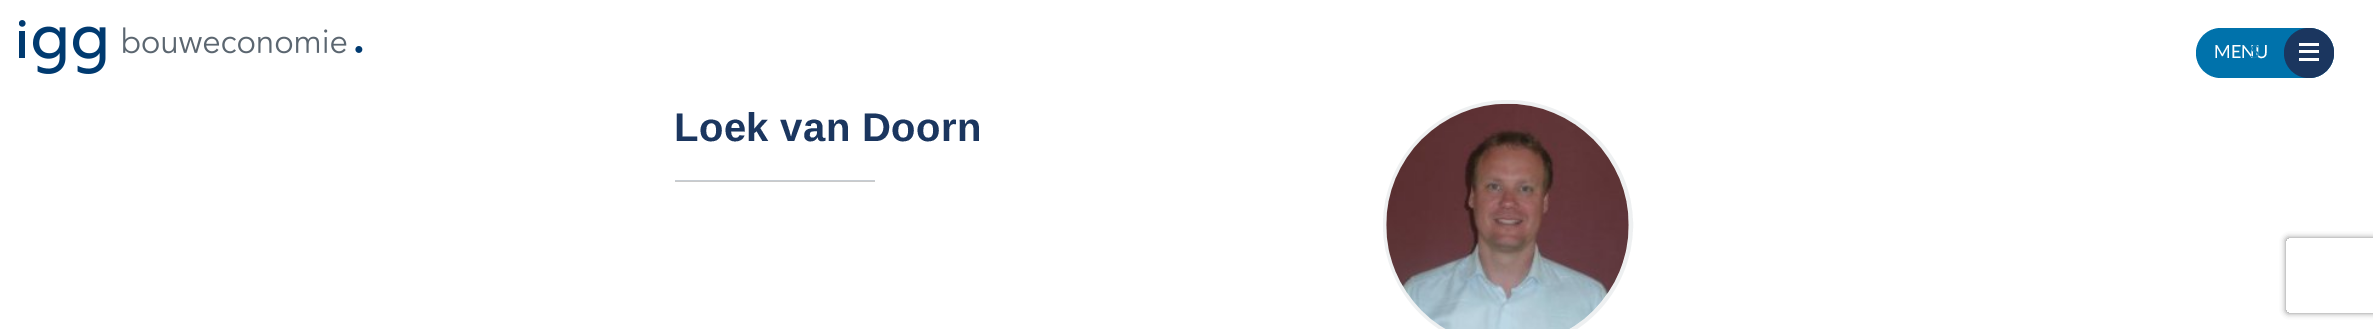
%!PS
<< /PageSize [2373 329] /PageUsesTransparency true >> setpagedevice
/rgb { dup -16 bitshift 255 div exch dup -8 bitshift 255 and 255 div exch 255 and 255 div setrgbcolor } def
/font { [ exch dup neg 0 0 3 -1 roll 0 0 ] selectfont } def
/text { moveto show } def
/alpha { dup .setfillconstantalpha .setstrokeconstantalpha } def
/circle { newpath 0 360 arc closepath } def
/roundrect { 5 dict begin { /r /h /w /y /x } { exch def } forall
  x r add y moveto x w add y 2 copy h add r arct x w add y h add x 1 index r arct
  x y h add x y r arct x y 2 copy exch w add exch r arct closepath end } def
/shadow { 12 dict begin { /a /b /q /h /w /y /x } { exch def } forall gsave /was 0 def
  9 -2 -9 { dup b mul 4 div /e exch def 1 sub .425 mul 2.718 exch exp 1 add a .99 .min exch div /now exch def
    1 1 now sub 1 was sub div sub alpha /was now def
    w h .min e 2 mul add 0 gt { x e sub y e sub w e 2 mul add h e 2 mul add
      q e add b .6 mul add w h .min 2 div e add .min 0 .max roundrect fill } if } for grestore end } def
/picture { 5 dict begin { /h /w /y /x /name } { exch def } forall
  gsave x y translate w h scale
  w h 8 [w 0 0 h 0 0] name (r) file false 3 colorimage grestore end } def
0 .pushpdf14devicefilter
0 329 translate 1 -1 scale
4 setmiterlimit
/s1 { /Lato-Regular 18 font 16#FFFFFF rgb } def
/s2 { /Lato-Regular 18 font 16#157EB2 rgb } def
16#FFFFFF rgb
0 0 2373 329 rectfill
(pic1.raw) 19 20 344 54 picture
16#0072AB rgb
2196 28 138 50 25 roundrect fill
s1
(MENU) 2214 58 text
s2
(S) 2250 58 text
16#1B365F rgb
2309 53 25 circle fill
16#FFFFFF rgb
2299 43 20 3 rectfill
2299 50 20 3 rectfill
2299 58 20 3 rectfill
/LiberationSans-Bold 40 font
16#1B365F rgb
674 141 moveto 0.4 0 (Loek van Doorn) ashow
16#C7CDD3 rgb
675 180 200 1 rectfill
16#CACACA rgb
675 181 200 1 rectfill
16#EEF0F1 rgb
4 setlinewidth
1508 225 123 circle stroke
(pic2.raw) 1386 103 243 226 picture
gsave
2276 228 moveto 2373 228 lineto 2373 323 lineto 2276 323 lineto closepath 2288.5 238 moveto 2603.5 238 lineto 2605 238 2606 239 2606 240.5 curveto 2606 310.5 lineto 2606 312 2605 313 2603.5 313 curveto 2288.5 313 lineto 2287 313 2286 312 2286 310.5 curveto 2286 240.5 lineto 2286 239 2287 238 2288.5 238 curveto closepath eoclip newpath
16#808080 rgb
2286 238 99 75 2.5 3 1 shadow
grestore
.poppdf14devicefilter showpage
